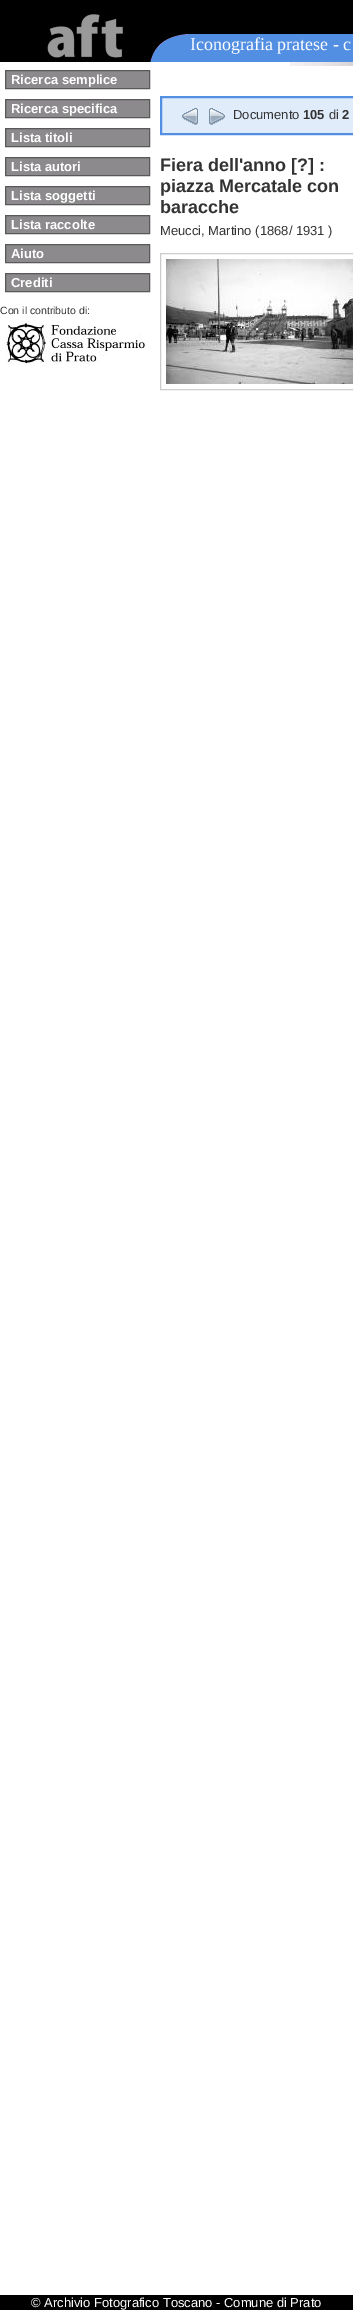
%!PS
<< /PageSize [353 2310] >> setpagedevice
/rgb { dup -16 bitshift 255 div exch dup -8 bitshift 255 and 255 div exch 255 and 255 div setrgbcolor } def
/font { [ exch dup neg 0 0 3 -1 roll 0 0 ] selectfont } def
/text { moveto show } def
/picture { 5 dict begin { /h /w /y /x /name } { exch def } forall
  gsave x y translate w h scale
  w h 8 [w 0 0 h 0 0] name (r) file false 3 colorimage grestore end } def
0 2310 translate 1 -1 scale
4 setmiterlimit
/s1 { /LiberationSerif-Regular 18 font 16#FFFFFF rgb } def
/s2 { /LiberationSans-Bold 13 font 16#FFFFFF rgb } def
/s3 { /LiberationSans-Regular 10.5 font 16#333333 rgb } def
/s4 { /LiberationSans-Regular 13 font 16#333333 rgb } def
/s5 { /LiberationSans-Bold 13 font 16#333333 rgb } def
/s6 { /LiberationSans-Bold 18 font 16#333333 rgb } def
/s7 { /LiberationSans-Regular 13 font 16#FFFFFF rgb } def
16#FFFFFF rgb
0 0 353 2310 rectfill
16#000000 rgb
0 0 150 62 rectfill
(pic1.raw) 47 14 76 44 picture
16#528FE2 rgb
151 34 202 28 rectfill
(pic2.raw) 150 34 38 28 picture
16#000000 rgb
150 0 203 34 rectfill
s1
(Iconografia pratese - c) 190 50 text
(pic3.raw) 290 62 63 4 picture
16#8C8A8C rgb
5.5 70.5 moveto 149.5 70.5 lineto 149.5 88.5 lineto 5.5 88.5 lineto closepath gsave fill grestore
16#5A595A rgb
stroke
s2
(Ricerca semplice) 11 84 text
16#8C8A8C rgb
5.5 99.5 moveto 149.5 99.5 lineto 149.5 117.5 lineto 5.5 117.5 lineto closepath gsave fill grestore
16#5A595A rgb
stroke
s2
(Ricerca specifica) 11 113 text
16#8C8A8C rgb
5.5 128.5 moveto 149.5 128.5 lineto 149.5 146.5 lineto 5.5 146.5 lineto closepath gsave fill grestore
16#5A595A rgb
stroke
s2
(Lista titoli) 11 142 text
16#8C8A8C rgb
5.5 157.5 moveto 149.5 157.5 lineto 149.5 175.5 lineto 5.5 175.5 lineto closepath gsave fill grestore
16#5A595A rgb
stroke
s2
(Lista autori) 11 171 text
16#8C8A8C rgb
5.5 186.5 moveto 149.5 186.5 lineto 149.5 204.5 lineto 5.5 204.5 lineto closepath gsave fill grestore
16#5A595A rgb
stroke
s2
(Lista soggetti) 11 200 text
16#8C8A8C rgb
5.5 215.5 moveto 149.5 215.5 lineto 149.5 233.5 lineto 5.5 233.5 lineto closepath gsave fill grestore
16#5A595A rgb
stroke
s2
(Lista raccolte) 11 229 text
16#8C8A8C rgb
5.5 244.5 moveto 149.5 244.5 lineto 149.5 262.5 lineto 5.5 262.5 lineto closepath gsave fill grestore
16#5A595A rgb
stroke
s2
(Aiuto) 11 258 text
16#8C8A8C rgb
5.5 273.5 moveto 149.5 273.5 lineto 149.5 291.5 lineto 5.5 291.5 lineto closepath gsave fill grestore
16#5A595A rgb
stroke
s2
(Crediti) 11 287 text
s3
(Con il contributo di:) 0 314 text
(pic4.raw) 5 317 142 48 picture
16#E1ECFB rgb
161 97 moveto 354 97 lineto 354 134 lineto 161 134 lineto closepath gsave fill grestore
16#528FE2 rgb
2 setlinewidth
stroke
(pic5.raw) 182 108 16 17 picture
(pic6.raw) 209 108 16 17 picture
s4
(Documento) 233 119 text
s5
(105) 303 119 text
s4
(di) 329 119 text
s5
(2) 342 119 text
s6
(Fiera dell'anno [?] :) 160 171 text
(piazza Mercatale con) 160 192 text
(baracche) 160 213 text
s4
(Meucci, Martino \(1868/ 1931 \)) 160 235 text
16#CCCCCC rgb
1 setlinewidth
160.5 253.5 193 136 rectstroke
(pic7.raw) 166 259 187 125 picture
16#000000 rgb
0 2295 353 15 rectfill
s7
(© Archivio Fotografico Toscano - Comune di Prato) 31 2307 text
showpage
